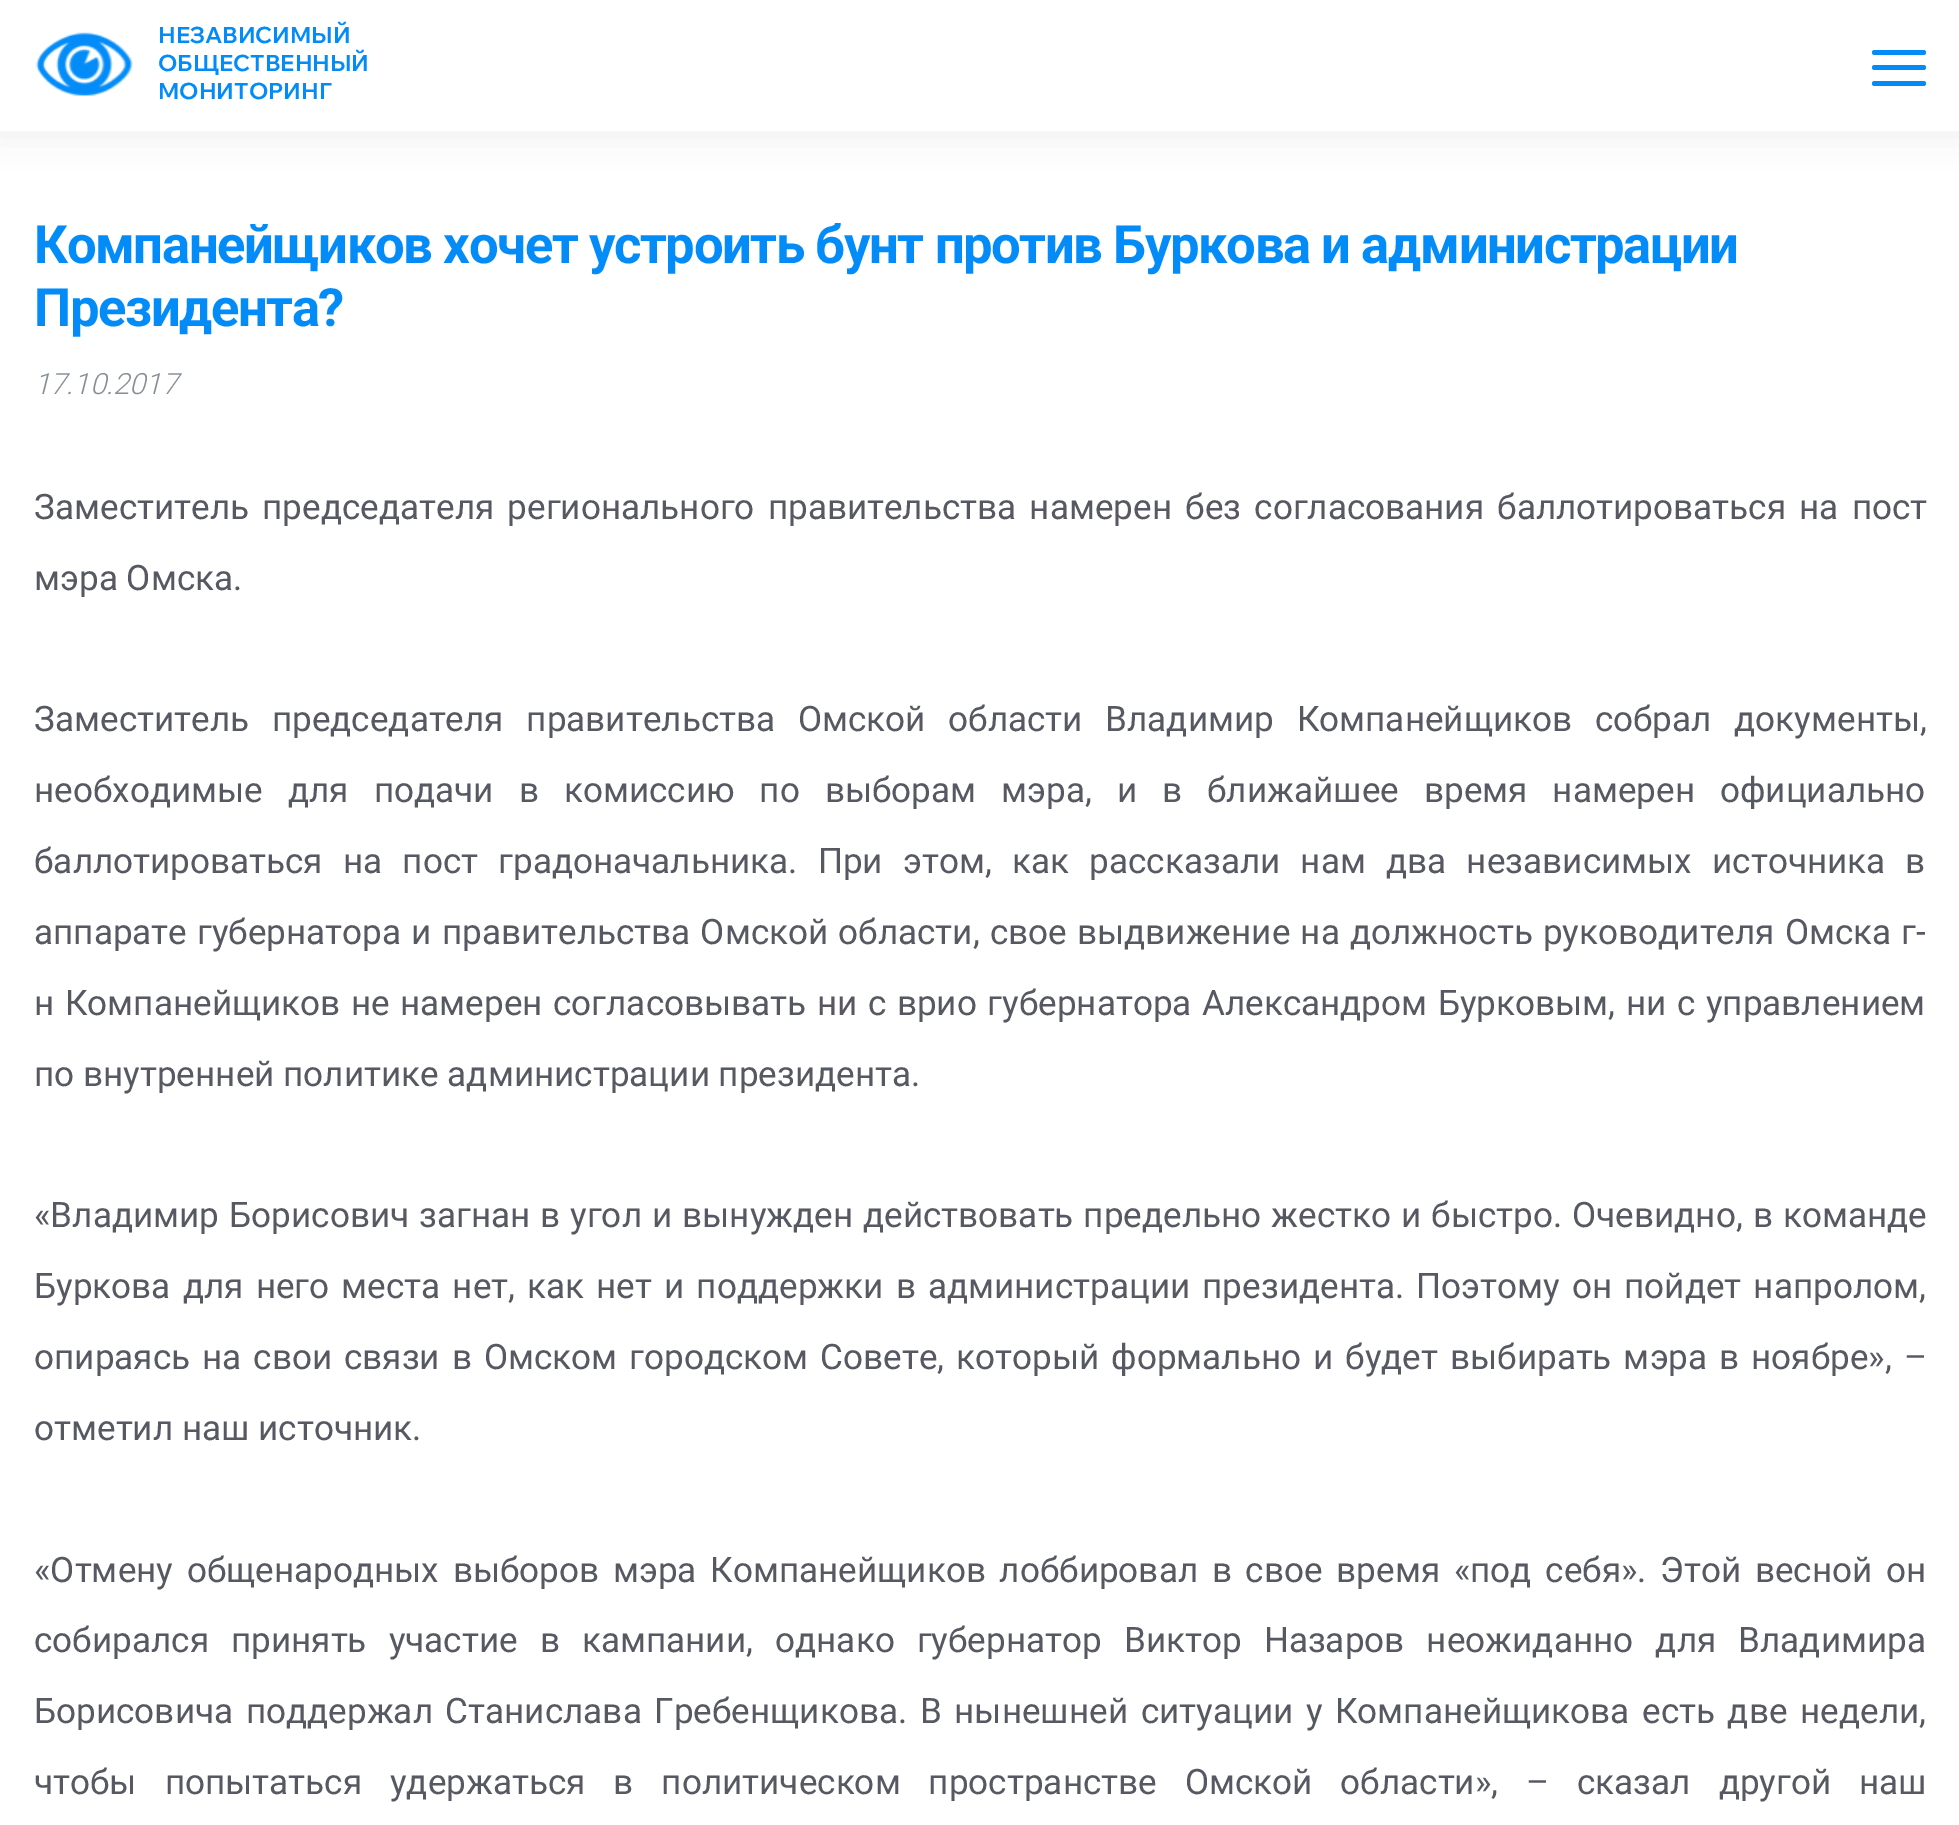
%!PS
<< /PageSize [1959 1825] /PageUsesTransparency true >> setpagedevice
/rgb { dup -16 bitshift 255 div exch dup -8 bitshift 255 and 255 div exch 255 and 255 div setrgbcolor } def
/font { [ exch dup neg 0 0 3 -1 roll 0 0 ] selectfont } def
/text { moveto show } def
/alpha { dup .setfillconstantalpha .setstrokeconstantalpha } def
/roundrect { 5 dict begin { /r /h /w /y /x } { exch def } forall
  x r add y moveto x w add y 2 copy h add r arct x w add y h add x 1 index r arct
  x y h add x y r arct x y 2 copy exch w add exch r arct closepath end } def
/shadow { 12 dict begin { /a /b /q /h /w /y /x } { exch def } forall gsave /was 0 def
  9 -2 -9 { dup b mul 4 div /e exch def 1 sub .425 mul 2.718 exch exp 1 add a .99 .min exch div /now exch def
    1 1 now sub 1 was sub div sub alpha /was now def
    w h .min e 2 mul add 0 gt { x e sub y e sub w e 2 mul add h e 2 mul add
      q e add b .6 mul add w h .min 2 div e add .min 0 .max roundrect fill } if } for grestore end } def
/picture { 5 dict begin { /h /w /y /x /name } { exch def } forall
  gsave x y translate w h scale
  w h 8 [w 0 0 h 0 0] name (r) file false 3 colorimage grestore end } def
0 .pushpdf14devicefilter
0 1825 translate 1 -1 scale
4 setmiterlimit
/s1 { /WixMadeforDisplay-Bold 22.5 font 16#038CF8 rgb } def
/s2 { /Roboto-LightItalic 29.25 font 16#868E96 rgb } def
/s3 { /Roboto-Regular 35.1 font 16#575962 rgb } def
16#FFFFFF rgb
0 0 1959 1825 rectfill
16#514D5C rgb
-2 0 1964 135 0 17 0.1 shadow
16#FFFFFF rgb
0 0 1959 131 rectfill
(pic1.raw) 36 32 97 64 picture
s1
(НЕЗАВИСИМЫЙ) 158 43 text
(ОБЩЕСТВЕННЫЙ) 158 71 text
(МОНИТОРИНГ) 158 99 text
1872 65 54 5 2.5 roundrect fill
1872 50 54 5 2.5 roundrect fill
1872 81 54 5 2.5 roundrect fill
/Roboto-Bold 52.65 font
34 263 moveto -1.42 0 (Компанейщиков хочет устроить бунт против Буркова и администрации) ashow
34 326 moveto -1.42 0 (Президента?) ashow
s2
(17.10.2017) 34 394 text
/Roboto-Regular 35.1 font
16#575962 rgb
34 519 moveto 4.5 0 32 (Заместитель председателя регионального правительства намерен без согласования баллотироваться на пост) widthshow
(мэра Омска.) 34 590 text
34 731 moveto 14 0 32 (Заместитель председателя правительства Омской области Владимир Компанейщиков собрал документы,) widthshow
34 802 moveto 16.25 0 32 (необходимые для подачи в комиссию по выборам мэра, и в ближайшее время намерен официально) widthshow
34 873 moveto 11.5 0 32 (баллотироваться на пост градоначальника. При этом, как рассказали нам два независимых источника в) widthshow
34 944 moveto 1.4 0 32 (аппарате губернатора и правительства Омской области, свое выдвижение на должность руководителя Омска г-) widthshow
34 1015 moveto 1.8 0 32 (н Компанейщиков не намерен согласовывать ни с врио губернатора Александром Бурковым, ни с управлением) widthshow
(по внутренней политике администрации президента.) 34 1086 text
34 1227 moveto 1.25 0 32 («Владимир Борисович загнан в угол и вынужден действовать предельно жестко и быстро. Очевидно, в команде) widthshow
34 1298 moveto 3.4 0 32 (Буркова для него места нет, как нет и поддержки в администрации президента. Поэтому он пойдет напролом,) widthshow
34 1369 moveto 3.25 0 32 (опираясь на свои связи в Омском городском Совете, который формально и будет выбирать мэра в ноябре», –) widthshow
(отметил наш источник.) 34 1440 text
34 1582 moveto 5 0 32 («Отмену общенародных выборов мэра Компанейщиков лоббировал в свое время «под себя». Этой весной он) widthshow
34 1652 moveto 13.4 0 32 (собирался принять участие в кампании, однако губернатор Виктор Назаров неожиданно для Владимира) widthshow
34 1723 moveto 3.9 0 32 (Борисовича поддержал Станислава Гребенщикова. В нынешней ситуации у Компанейщикова есть две недели,) widthshow
34 1794 moveto 19.25 0 32 (чтобы попытаться удержаться в политическом пространстве Омской области», – сказал другой наш) widthshow
.poppdf14devicefilter showpage
